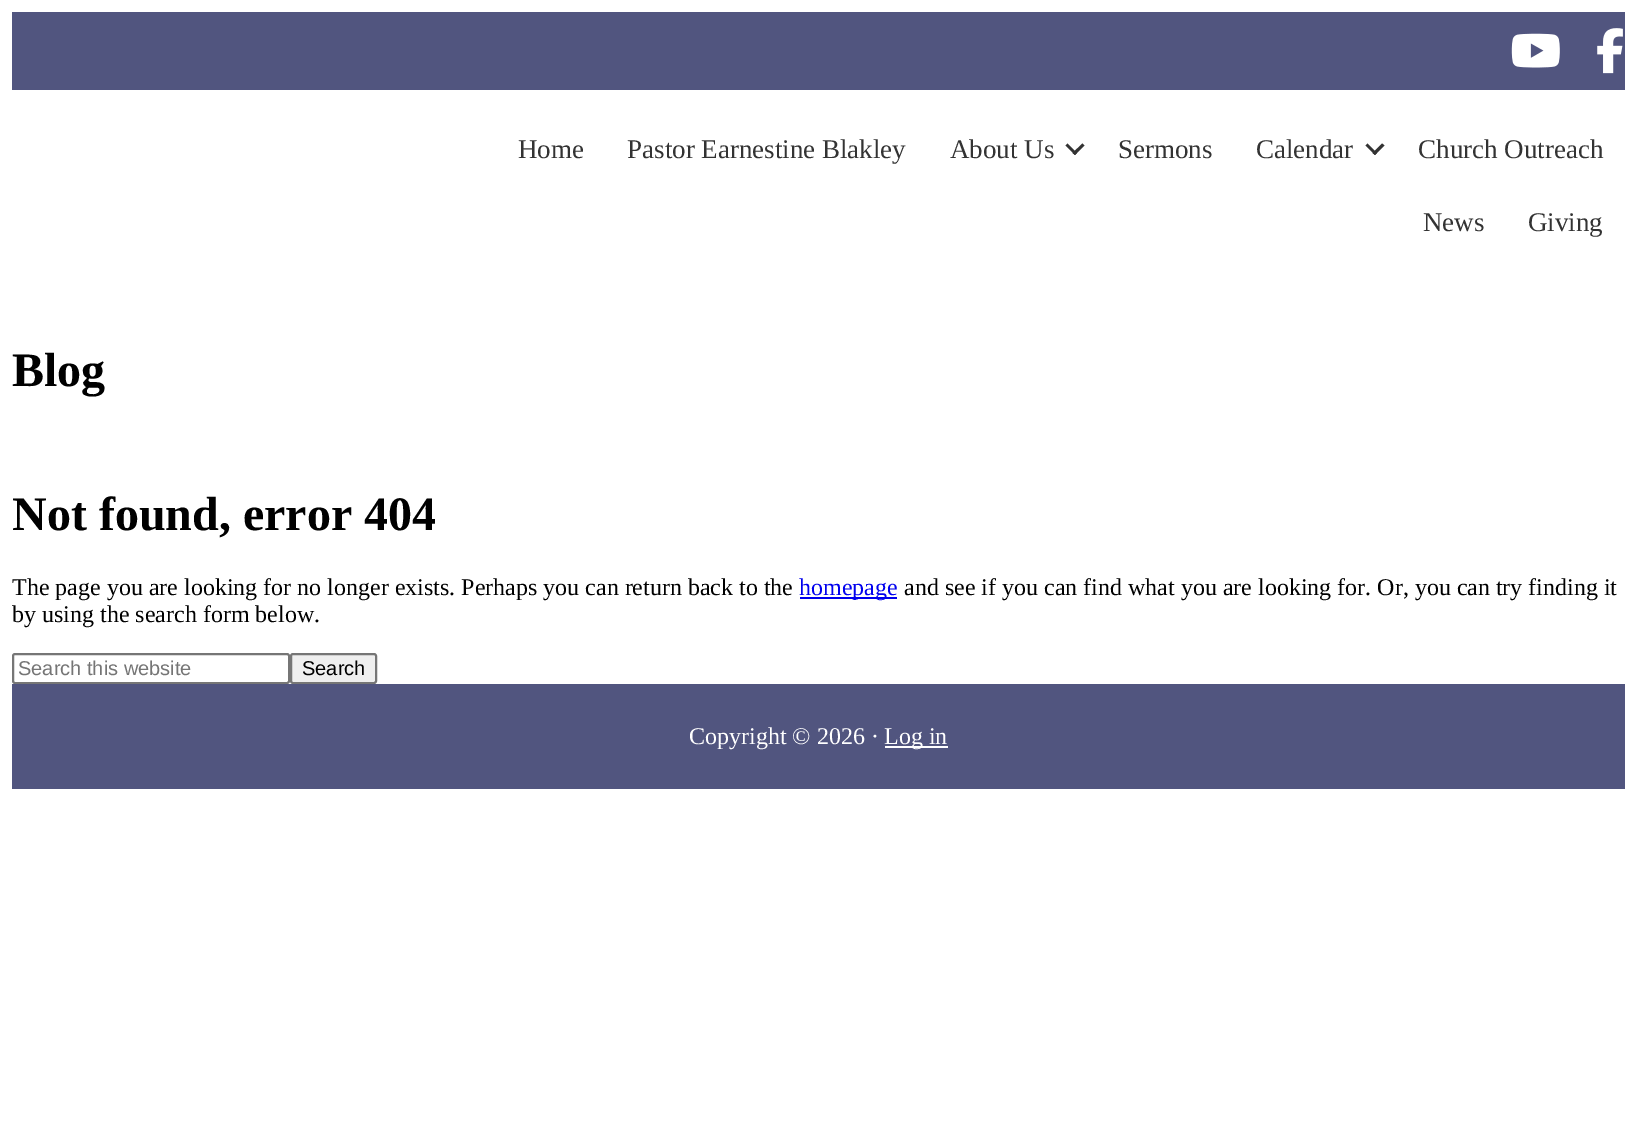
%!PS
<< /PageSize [1636 1127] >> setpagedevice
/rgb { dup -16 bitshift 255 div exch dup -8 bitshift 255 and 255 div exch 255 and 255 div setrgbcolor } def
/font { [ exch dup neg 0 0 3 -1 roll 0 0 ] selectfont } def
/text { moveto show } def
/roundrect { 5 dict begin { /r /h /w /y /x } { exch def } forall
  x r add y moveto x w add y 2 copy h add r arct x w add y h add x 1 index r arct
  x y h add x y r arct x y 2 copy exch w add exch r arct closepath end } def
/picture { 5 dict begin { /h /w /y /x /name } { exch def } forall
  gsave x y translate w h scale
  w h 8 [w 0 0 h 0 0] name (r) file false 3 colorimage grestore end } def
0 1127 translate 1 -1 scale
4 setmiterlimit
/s1 { /LiberationSerif-Regular 27 font 16#333333 rgb } def
/s2 { /LiberationSerif-Bold 48 font 16#000000 rgb } def
/s3 { /LiberationSerif-Regular 24 font 16#000000 rgb } def
/s4 { /LiberationSerif-Regular 24 font 16#0000EE rgb } def
/s5 { /LiberationSans-Regular 20 font 16#757575 rgb } def
/s6 { /LiberationSans-Regular 20 font 16#000000 rgb } def
/s7 { /LiberationSerif-Regular 24 font 16#FFFFFF rgb } def
16#FFFFFF rgb
0 0 1636 1127 rectfill
16#51557F rgb
12 12 1613 78 rectfill
(pic1.raw) 1511 33 49 35 picture
(pic2.raw) 1597 28 26 46 picture
s1
(Home) 518 158 text
(Pastor Earnestine Blakley) 627 158 text
(About Us) 950 158 text
1082.5 143.5 moveto 1084.5 145.5 lineto 1075 155 lineto 1072.5 153 lineto closepath fill
1067.5 143.5 moveto 1077 153 lineto 1075 155 lineto 1065.5 145.5 lineto closepath fill
(Sermons) 1118 158 text
(Calendar) 1256 158 text
1382 143.5 moveto 1384.5 145.5 lineto 1375 155 lineto 1372.5 153 lineto closepath fill
1367.5 143.5 moveto 1377 153 lineto 1375 155 lineto 1365.5 145.5 lineto closepath fill
(Church Outreach) 1418 158 text
(News) 1423 231 text
(Giving) 1528 231 text
s2
(Blog) 12 386 text
(Not found, error 404) 12 530 text
s3
(The page you are looking for no longer exists. Perhaps you can return back to the) 12 595 text
16#0000EE rgb
800 597 97 2 rectfill
(homepage) 799 595 text
s3
(and see if you can find what you are looking for. Or, you can try finding it) 904 595 text
(by using the search form below.) 12 622 text
16#767676 rgb
2 setlinewidth
13 654 276 29 2 roundrect stroke
s5
(Search this website) 18 675 text
16#EFEFEF rgb
291 654 85 29 2 roundrect gsave fill grestore
16#767676 rgb
stroke
s6
(Search) 302 675 text
16#51557F rgb
12 684 1613 105 rectfill
s7
(Copyright © 2026 ·) 689 744 text
885 746 63 2 rectfill
(Log in) 884 744 text
showpage
